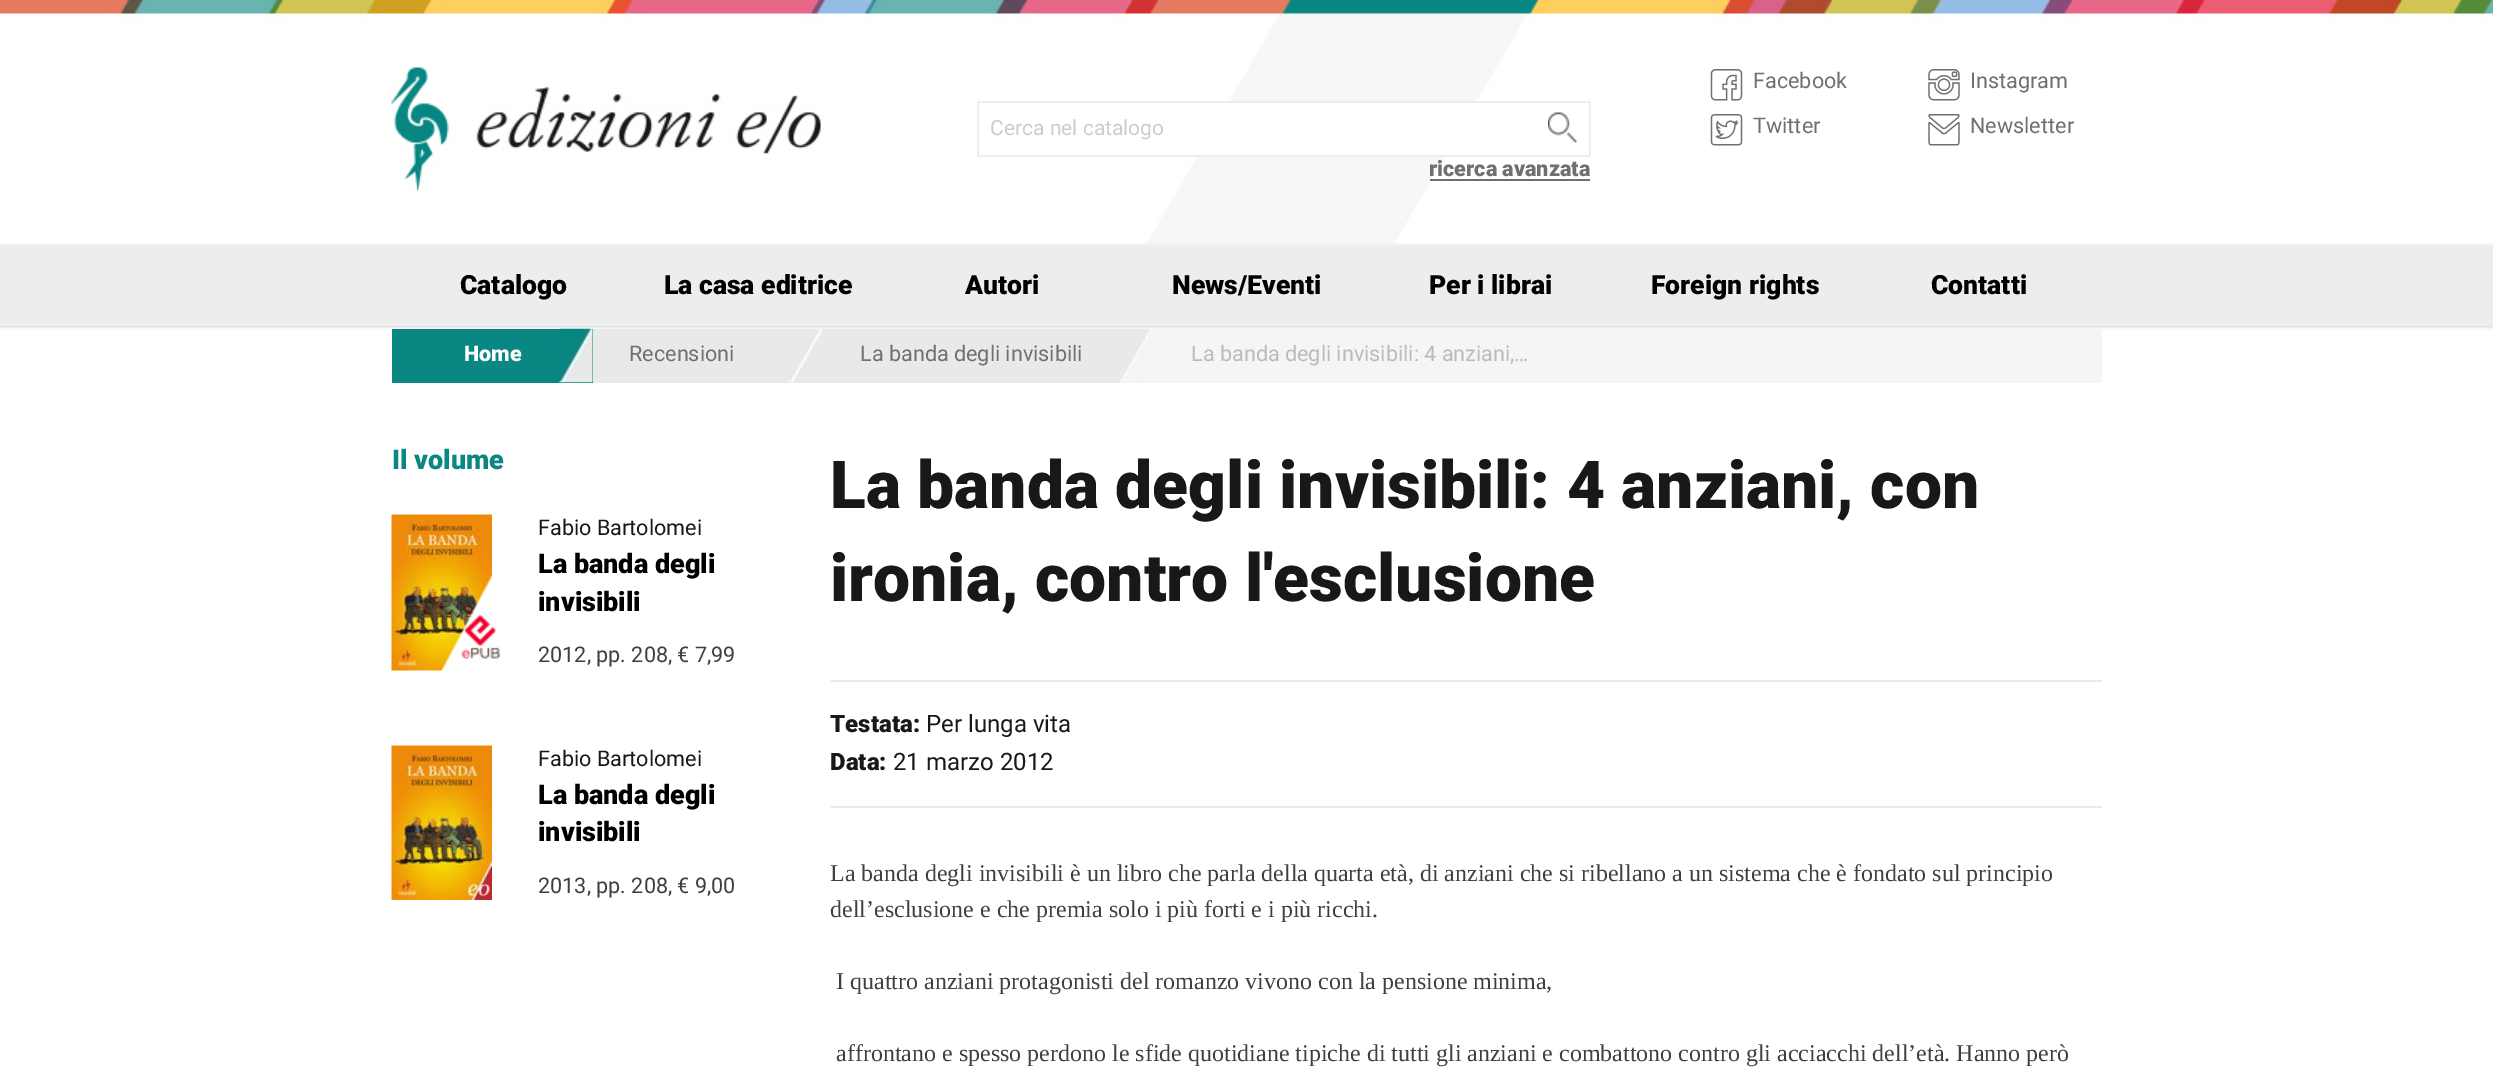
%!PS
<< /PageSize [2493 1076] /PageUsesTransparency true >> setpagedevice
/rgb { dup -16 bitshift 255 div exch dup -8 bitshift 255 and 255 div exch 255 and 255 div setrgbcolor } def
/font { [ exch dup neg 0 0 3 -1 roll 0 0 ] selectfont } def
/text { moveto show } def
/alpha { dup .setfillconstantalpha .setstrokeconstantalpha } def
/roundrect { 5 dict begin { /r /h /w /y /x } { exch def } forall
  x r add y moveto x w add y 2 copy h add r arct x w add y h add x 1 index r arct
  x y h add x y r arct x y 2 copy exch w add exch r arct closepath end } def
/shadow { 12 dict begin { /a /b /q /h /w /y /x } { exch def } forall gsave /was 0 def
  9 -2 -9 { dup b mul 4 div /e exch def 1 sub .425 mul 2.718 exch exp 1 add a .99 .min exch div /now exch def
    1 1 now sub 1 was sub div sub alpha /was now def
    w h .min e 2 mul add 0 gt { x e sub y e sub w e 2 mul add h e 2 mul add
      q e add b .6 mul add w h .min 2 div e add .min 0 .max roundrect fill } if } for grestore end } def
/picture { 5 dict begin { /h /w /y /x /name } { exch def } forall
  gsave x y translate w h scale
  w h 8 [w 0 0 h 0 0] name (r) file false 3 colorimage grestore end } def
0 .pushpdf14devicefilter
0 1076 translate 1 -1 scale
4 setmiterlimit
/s1 { /Roboto-Regular 21.6 font 16#6F7072 rgb } def
/s2 { /Roboto-Regular 21 font 16#CCCCCC rgb } def
/s3 { /Roboto-Black 21.6 font 16#6F7072 rgb } def
/s4 { /Roboto-Black 26.5 font 16#000000 rgb } def
/s5 { /Roboto-Black 21.6 font 16#FFFFFF rgb } def
/s6 { /Roboto-Regular 21.6 font 16#BBBBBB rgb } def
/s7 { /Roboto-Black 27 font 16#098782 rgb } def
/s8 { /Roboto-Regular 21.6 font 16#1A171B rgb } def
/s9 { /Roboto-Black 27 font 16#000000 rgb } def
/s10 { /Roboto-Regular 21.6 font 16#3E3F40 rgb } def
/s11 { /Roboto-Black 66 font 16#1A171B rgb } def
/s12 { /Roboto-Black 24 font 16#1A171B rgb } def
/s13 { /Roboto-Regular 24 font 16#1A171B rgb } def
/s14 { /LiberationSerif-Regular 24 font 16#3E3F40 rgb } def
16#FFFFFF rgb
0 0 2493 1076 rectfill
(pic1.raw) 0 0 2493 245 picture
(pic2.raw) 391 67 430 125 picture
(pic3.raw) 1710 69 33 32 picture
s1
(Facebook) 1753 88 text
(pic4.raw) 1710 114 33 32 picture
(Twitter) 1753 133 text
(pic5.raw) 1928 69 32 32 picture
(Instagram) 1970 88 text
(pic6.raw) 1928 114 32 32 picture
(Newsletter) 1970 133 text
16#FFFFFF rgb
1197 103 279 52 rectfill
16#ECEDED rgb
977 101 613 2 rectfill
977 155 511 2 rectfill
977 101 2 55 rectfill
s2
(Cerca nel catalogo) 990 135 text
(pic7.raw) 1548 112 29 31 picture
16#ECEDED rgb
1589 101 2 55 rectfill
1488 155 102 2 rectfill
s3
(ricerca avanzata) 1429 176 text
1430 179 160 2 rectfill
16#000000 rgb
0 246 2493 81 0 1.5 0.12 shadow
0 246 2493 81 0 2 0.06 shadow
16#ECEDED rgb
0 245 2493 81 rectfill
s4
(Catalogo) 460 294 text
(La casa editrice) 664 294 text
(Autori) 965 294 text
(News/Eventi) 1172 294 text
(Per i librai) 1429 294 text
(Foreign rights) 1651 294 text
(Contatti) 1931 294 text
16#F5F5F5 rgb
1119 329 983 54 rectfill
16#098782 rgb
392 329 201 54 rectfill
(pic8.raw) 559 328 34 55 picture
s5
(Home) 464 361 text
16#E9E9E9 rgb
593 329 526 54 rectfill
s1
(Recensioni) 629 361 text
(pic9.raw) 789 329 33 54 picture
(La banda degli invisibili) 860 361 text
(pic10.raw) 1119 329 33 53 picture
s6
(La banda degli invisibili: 4 anziani,…) 1191 361 text
s7
(Il volume) 392 469 text
(pic11.raw) 391 514 101 157 picture
(pic12.raw) 441 573 59 98 picture
s8
(Fabio Bartolomei) 538 535 text
s9
(La banda degli) 538 573 text
(invisibili) 538 611 text
s10
(2012, pp. 208, € 7,99) 538 662 text
(pic13.raw) 391 745 101 155 picture
s8
(Fabio Bartolomei) 538 766 text
s9
(La banda degli) 538 804 text
(invisibili) 538 841 text
s10
(2013, pp. 208, € 9,00) 538 893 text
s11
(La banda degli invisibili: 4 anziani, con) 830 508 text
(ironia, contro l'esclusione) 830 601 text
16#E9E9E9 rgb
831 680 1271 2 rectfill
831 806 1271 2 rectfill
s12
(Testata:) 830 732 text
s13
(Per lunga vita) 926 732 text
s12
(Data:) 830 770 text
s13
(21 marzo 2012) 893 770 text
s14
(La banda degli invisibili è un libro che parla della quarta età, di anziani che si ribellano a un sistema che è fondato sul principio) 830 881 text
(dell’esclusione e che premia solo i più forti e i più ricchi.) 830 917 text
(I quattro anziani protagonisti del romanzo vivono con la pensione minima,) 836 989 text
(affrontano e spesso perdono le sfide quotidiane tipiche di tutti gli anziani e combattono contro gli acciacchi dell’età. Hanno però) 836 1061 text
.poppdf14devicefilter showpage
